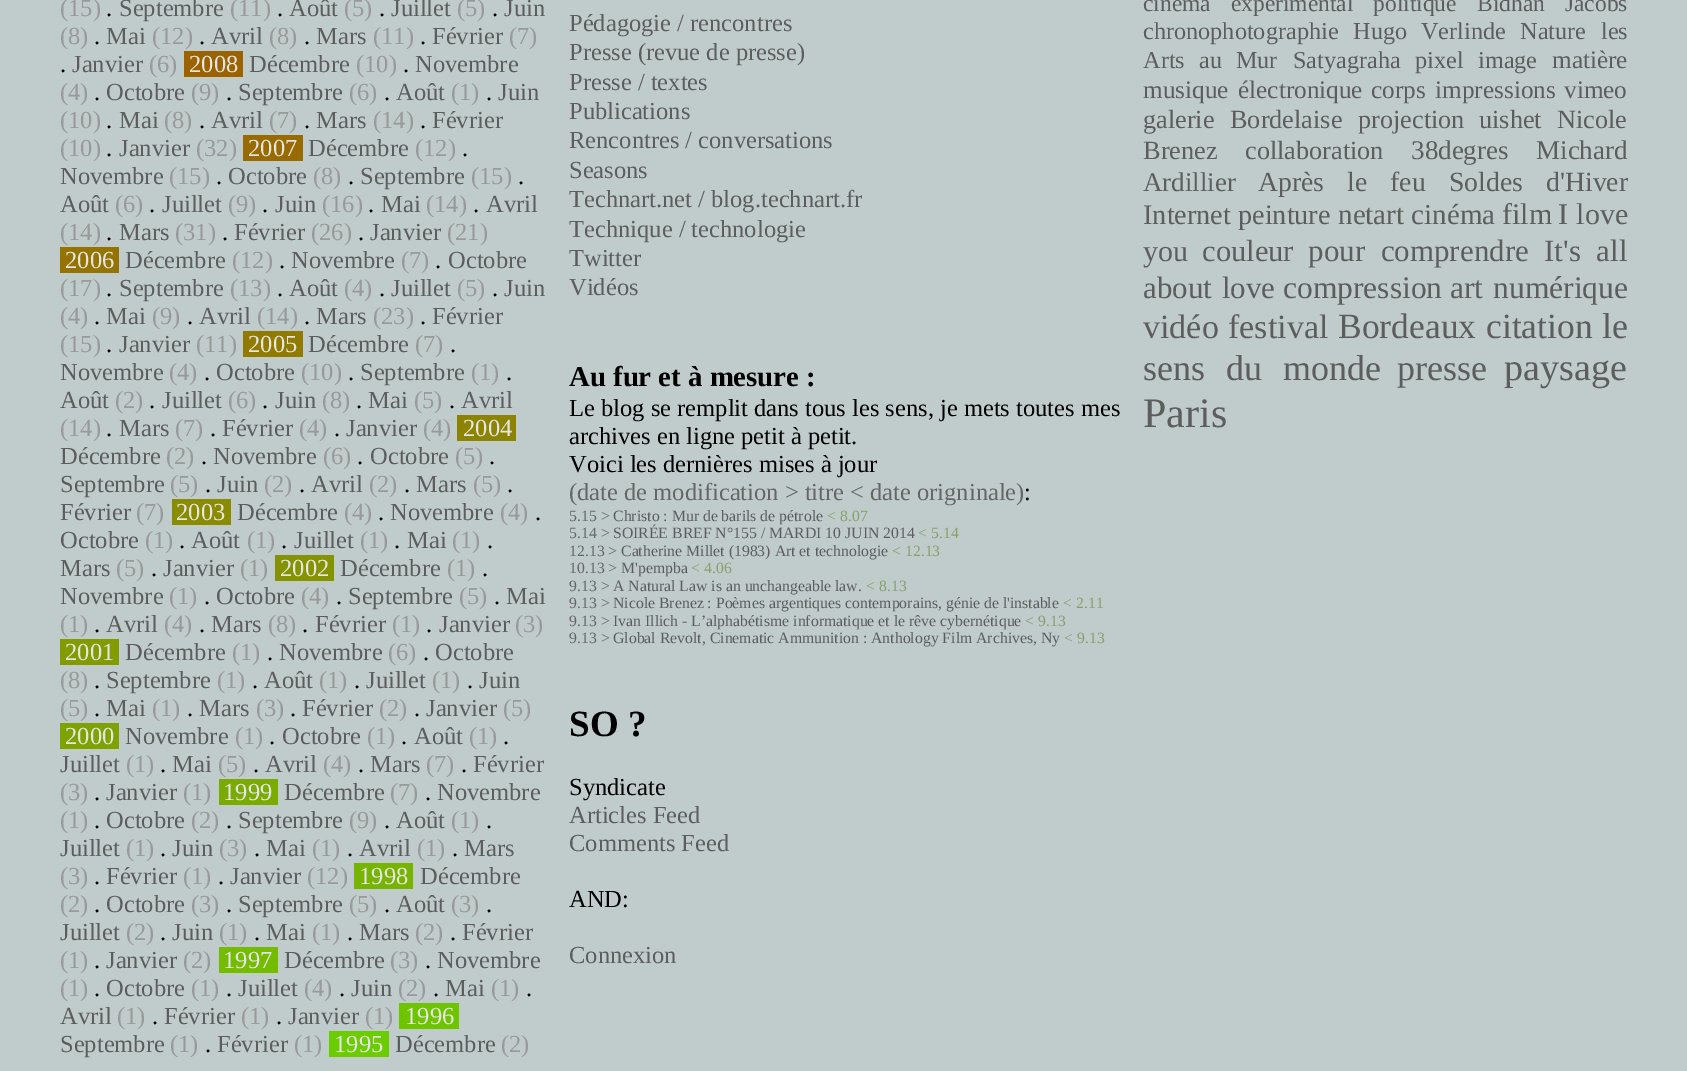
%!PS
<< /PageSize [1687 1071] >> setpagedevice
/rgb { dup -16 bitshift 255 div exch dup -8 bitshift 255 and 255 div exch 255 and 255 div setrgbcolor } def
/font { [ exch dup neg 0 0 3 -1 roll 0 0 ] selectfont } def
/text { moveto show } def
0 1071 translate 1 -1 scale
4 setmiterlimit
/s1 { /LiberationSerif-Regular 24.5 font 16#999999 rgb } def
/s2 { /LiberationSerif-Regular 24.5 font 16#000000 rgb } def
/s3 { /LiberationSerif-Regular 24.5 font 16#5D5D5D rgb } def
/s4 { /LiberationSerif-Regular 24.5 font 16#E5E5E5 rgb } def
/s5 { /LiberationSerif-Bold 28.75 font 16#000000 rgb } def
/s6 { /LiberationSerif-Regular 24.5 font 16#666666 rgb } def
/s7 { /LiberationSerif-Regular 15.75 font 16#666666 rgb } def
/s8 { /LiberationSerif-Regular 15.75 font 16#5D5D5D rgb } def
/s9 { /LiberationSerif-Regular 15.75 font 16#86A06B rgb } def
/s10 { /LiberationSerif-Bold 37 font 16#000000 rgb } def
/s11 { /LiberationSerif-Regular 23.5 font 16#5D5D5D rgb } def
/s12 { /LiberationSerif-Regular 24.25 font 16#5D5D5D rgb } def
/s13 { /LiberationSerif-Regular 25.25 font 16#5D5D5D rgb } def
/s14 { /LiberationSerif-Regular 26.25 font 16#5D5D5D rgb } def
/s15 { /LiberationSerif-Regular 27 font 16#5D5D5D rgb } def
/s16 { /LiberationSerif-Regular 28.25 font 16#5D5D5D rgb } def
/s17 { /LiberationSerif-Regular 29 font 16#5D5D5D rgb } def
/s18 { /LiberationSerif-Regular 30 font 16#5D5D5D rgb } def
/s19 { /LiberationSerif-Regular 30.5 font 16#5D5D5D rgb } def
/s20 { /LiberationSerif-Regular 31.5 font 16#5D5D5D rgb } def
/s21 { /LiberationSerif-Regular 34 font 16#5D5D5D rgb } def
/s22 { /LiberationSerif-Regular 35.5 font 16#5D5D5D rgb } def
/s23 { /LiberationSerif-Regular 36 font 16#5D5D5D rgb } def
/s24 { /LiberationSerif-Regular 38 font 16#5D5D5D rgb } def
/s25 { /LiberationSerif-Regular 42 font 16#5D5D5D rgb } def
16#C0CCCC rgb
0 0 1687 1071 rectfill
s1
(\(15\)) 60 16 text
s2
(.) 106 16 text
s3
(Septembre) 119 16 text
s1
(\(11\)) 230 16 text
s2
(.) 277 16 text
s3
(Août) 289 16 text
s1
(\(5\)) 344 16 text
s2
(.) 379 16 text
s3
(Juillet) 391 16 text
s1
(\(5\)) 457 16 text
s2
(.) 492 16 text
s3
(Juin) 504 16 text
s1
(\(8\)) 60 44 text
s2
(.) 94 44 text
s3
(Mai) 106 44 text
s1
(\(12\)) 152 44 text
s2
(.) 199 44 text
s3
(Avril) 211 44 text
s1
(\(8\)) 269 44 text
s2
(.) 304 44 text
s3
(Mars) 316 44 text
s1
(\(11\)) 373 44 text
s2
(.) 420 44 text
s3
(Février) 432 44 text
s1
(\(7\)) 509 44 text
s2
(.) 60 72 text
s3
(Janvier) 72 72 text
s1
(\(6\)) 149 72 text
16#9B6300 rgb
184 51 59 26 rectfill
s4
(2008) 189 72 text
s3
(Décembre) 249 72 text
s1
(\(10\)) 356 72 text
s2
(.) 403 72 text
s3
(Novembre) 415 72 text
s1
(\(4\)) 60 100 text
s2
(.) 94 100 text
s3
(Octobre) 106 100 text
s1
(\(9\)) 191 100 text
s2
(.) 226 100 text
s3
(Septembre) 238 100 text
s1
(\(6\)) 349 100 text
s2
(.) 384 100 text
s3
(Août) 396 100 text
s1
(\(1\)) 451 100 text
s2
(.) 486 100 text
s3
(Juin) 498 100 text
s1
(\(10\)) 60 128 text
s2
(.) 106 128 text
s3
(Mai) 119 128 text
s1
(\(8\)) 164 128 text
s2
(.) 199 128 text
s3
(Avril) 211 128 text
s1
(\(7\)) 269 128 text
s2
(.) 304 128 text
s3
(Mars) 316 128 text
s1
(\(14\)) 373 128 text
s2
(.) 420 128 text
s3
(Février) 432 128 text
s1
(\(10\)) 60 156 text
s2
(.) 106 156 text
s3
(Janvier) 119 156 text
s1
(\(32\)) 196 156 text
16#976B00 rgb
243 135 60 26 rectfill
s4
(2007) 248 156 text
s3
(Décembre) 308 156 text
s1
(\(12\)) 415 156 text
s2
(.) 462 156 text
s3
(Novembre) 60 184 text
s1
(\(15\)) 169 184 text
s2
(.) 216 184 text
s3
(Octobre) 228 184 text
s1
(\(8\)) 313 184 text
s2
(.) 348 184 text
s3
(Septembre) 360 184 text
s1
(\(15\)) 471 184 text
s2
(.) 518 184 text
s3
(Août) 60 212 text
s1
(\(6\)) 115 212 text
s2
(.) 149 212 text
s3
(Juillet) 162 212 text
s1
(\(9\)) 228 212 text
s2
(.) 262 212 text
s3
(Juin) 275 212 text
s1
(\(16\)) 322 212 text
s2
(.) 368 212 text
s3
(Mai) 381 212 text
s1
(\(14\)) 426 212 text
s2
(.) 473 212 text
s3
(Avril) 486 212 text
s1
(\(14\)) 60 240 text
s2
(.) 106 240 text
s3
(Mars) 119 240 text
s1
(\(31\)) 175 240 text
s2
(.) 222 240 text
s3
(Février) 234 240 text
s1
(\(26\)) 311 240 text
s2
(.) 358 240 text
s3
(Janvier) 370 240 text
s1
(\(21\)) 447 240 text
16#947300 rgb
60 247 59 26 rectfill
s4
(2006) 65 268 text
s3
(Décembre) 125 268 text
s1
(\(12\)) 232 268 text
s2
(.) 279 268 text
s3
(Novembre) 291 268 text
s1
(\(7\)) 401 268 text
s2
(.) 435 268 text
s3
(Octobre) 448 268 text
s1
(\(17\)) 60 296 text
s2
(.) 106 296 text
s3
(Septembre) 119 296 text
s1
(\(13\)) 230 296 text
s2
(.) 277 296 text
s3
(Août) 289 296 text
s1
(\(4\)) 344 296 text
s2
(.) 379 296 text
s3
(Juillet) 391 296 text
s1
(\(5\)) 457 296 text
s2
(.) 492 296 text
s3
(Juin) 504 296 text
s1
(\(4\)) 60 324 text
s2
(.) 94 324 text
s3
(Mai) 106 324 text
s1
(\(9\)) 152 324 text
s2
(.) 187 324 text
s3
(Avril) 199 324 text
s1
(\(14\)) 257 324 text
s2
(.) 304 324 text
s3
(Mars) 316 324 text
s1
(\(23\)) 373 324 text
s2
(.) 420 324 text
s3
(Février) 432 324 text
s1
(\(15\)) 60 352 text
s2
(.) 106 352 text
s3
(Janvier) 119 352 text
s1
(\(11\)) 196 352 text
16#907B00 rgb
243 331 60 26 rectfill
s4
(2005) 248 352 text
s3
(Décembre) 308 352 text
s1
(\(7\)) 415 352 text
s2
(.) 450 352 text
s3
(Novembre) 60 380 text
s1
(\(4\)) 169 380 text
s2
(.) 204 380 text
s3
(Octobre) 216 380 text
s1
(\(10\)) 301 380 text
s2
(.) 348 380 text
s3
(Septembre) 360 380 text
s1
(\(1\)) 471 380 text
s2
(.) 506 380 text
s3
(Août) 60 408 text
s1
(\(2\)) 115 408 text
s2
(.) 149 408 text
s3
(Juillet) 162 408 text
s1
(\(6\)) 228 408 text
s2
(.) 262 408 text
s3
(Juin) 275 408 text
s1
(\(8\)) 322 408 text
s2
(.) 356 408 text
s3
(Mai) 368 408 text
s1
(\(5\)) 414 408 text
s2
(.) 449 408 text
s3
(Avril) 461 408 text
s1
(\(14\)) 60 436 text
s2
(.) 106 436 text
s3
(Mars) 119 436 text
s1
(\(7\)) 175 436 text
s2
(.) 210 436 text
s3
(Février) 222 436 text
s1
(\(4\)) 299 436 text
s2
(.) 334 436 text
s3
(Janvier) 346 436 text
s1
(\(4\)) 423 436 text
16#8C8300 rgb
457 415 59 26 rectfill
s4
(2004) 463 436 text
s3
(Décembre) 60 464 text
s1
(\(2\)) 166 464 text
s2
(.) 201 464 text
s3
(Novembre) 213 464 text
s1
(\(6\)) 323 464 text
s2
(.) 357 464 text
s3
(Octobre) 370 464 text
s1
(\(5\)) 455 464 text
s2
(.) 489 464 text
s3
(Septembre) 60 492 text
s1
(\(5\)) 170 492 text
s2
(.) 205 492 text
s3
(Juin) 217 492 text
s1
(\(2\)) 264 492 text
s2
(.) 299 492 text
s3
(Avril) 311 492 text
s1
(\(2\)) 369 492 text
s2
(.) 404 492 text
s3
(Mars) 416 492 text
s1
(\(5\)) 473 492 text
s2
(.) 507 492 text
s3
(Février) 60 520 text
s1
(\(7\)) 136 520 text
16#898B00 rgb
172 499 59 26 rectfill
s4
(2003) 176 520 text
s3
(Décembre) 237 520 text
s1
(\(4\)) 344 520 text
s2
(.) 378 520 text
s3
(Novembre) 390 520 text
s1
(\(4\)) 500 520 text
s2
(.) 535 520 text
s3
(Octobre) 60 548 text
s1
(\(1\)) 145 548 text
s2
(.) 179 548 text
s3
(Août) 191 548 text
s1
(\(1\)) 247 548 text
s2
(.) 281 548 text
s3
(Juillet) 294 548 text
s1
(\(1\)) 360 548 text
s2
(.) 394 548 text
s3
(Mai) 407 548 text
s1
(\(1\)) 452 548 text
s2
(.) 487 548 text
s3
(Mars) 60 576 text
s1
(\(5\)) 116 576 text
s2
(.) 151 576 text
s3
(Janvier) 163 576 text
s1
(\(1\)) 240 576 text
16#859300 rgb
275 555 59 26 rectfill
s4
(2002) 280 576 text
s3
(Décembre) 340 576 text
s1
(\(1\)) 447 576 text
s2
(.) 482 576 text
s3
(Novembre) 60 604 text
s1
(\(1\)) 169 604 text
s2
(.) 204 604 text
s3
(Octobre) 216 604 text
s1
(\(4\)) 301 604 text
s2
(.) 336 604 text
s3
(Septembre) 348 604 text
s1
(\(5\)) 459 604 text
s2
(.) 494 604 text
s3
(Mai) 506 604 text
s1
(\(1\)) 60 632 text
s2
(.) 94 632 text
s3
(Avril) 106 632 text
s1
(\(4\)) 164 632 text
s2
(.) 199 632 text
s3
(Mars) 211 632 text
s1
(\(8\)) 268 632 text
s2
(.) 302 632 text
s3
(Février) 315 632 text
s1
(\(1\)) 392 632 text
s2
(.) 426 632 text
s3
(Janvier) 439 632 text
s1
(\(3\)) 515 632 text
16#819B00 rgb
60 639 59 26 rectfill
s4
(2001) 65 660 text
s3
(Décembre) 125 660 text
s1
(\(1\)) 232 660 text
s2
(.) 267 660 text
s3
(Novembre) 279 660 text
s1
(\(6\)) 388 660 text
s2
(.) 423 660 text
s3
(Octobre) 435 660 text
s1
(\(8\)) 60 688 text
s2
(.) 94 688 text
s3
(Septembre) 106 688 text
s1
(\(1\)) 217 688 text
s2
(.) 252 688 text
s3
(Août) 264 688 text
s1
(\(1\)) 319 688 text
s2
(.) 354 688 text
s3
(Juillet) 366 688 text
s1
(\(1\)) 432 688 text
s2
(.) 467 688 text
s3
(Juin) 479 688 text
s1
(\(5\)) 60 716 text
s2
(.) 94 716 text
s3
(Mai) 106 716 text
s1
(\(1\)) 152 716 text
s2
(.) 187 716 text
s3
(Mars) 199 716 text
s1
(\(3\)) 256 716 text
s2
(.) 290 716 text
s3
(Février) 302 716 text
s1
(\(2\)) 379 716 text
s2
(.) 414 716 text
s3
(Janvier) 426 716 text
s1
(\(5\)) 503 716 text
16#7EA300 rgb
60 723 59 26 rectfill
s4
(2000) 65 744 text
s3
(Novembre) 125 744 text
s1
(\(1\)) 235 744 text
s2
(.) 269 744 text
s3
(Octobre) 282 744 text
s1
(\(1\)) 367 744 text
s2
(.) 401 744 text
s3
(Août) 414 744 text
s1
(\(1\)) 469 744 text
s2
(.) 503 744 text
s3
(Juillet) 60 772 text
s1
(\(1\)) 126 772 text
s2
(.) 160 772 text
s3
(Mai) 172 772 text
s1
(\(5\)) 218 772 text
s2
(.) 253 772 text
s3
(Avril) 265 772 text
s1
(\(4\)) 323 772 text
s2
(.) 358 772 text
s3
(Mars) 370 772 text
s1
(\(7\)) 426 772 text
s2
(.) 461 772 text
s3
(Février) 473 772 text
s1
(\(3\)) 60 800 text
s2
(.) 94 800 text
s3
(Janvier) 106 800 text
s1
(\(1\)) 183 800 text
16#7AAB00 rgb
219 779 59 26 rectfill
s4
(1999) 223 800 text
s3
(Décembre) 284 800 text
s1
(\(7\)) 390 800 text
s2
(.) 425 800 text
s3
(Novembre) 437 800 text
s1
(\(1\)) 60 828 text
s2
(.) 94 828 text
s3
(Octobre) 106 828 text
s1
(\(2\)) 191 828 text
s2
(.) 226 828 text
s3
(Septembre) 238 828 text
s1
(\(9\)) 349 828 text
s2
(.) 384 828 text
s3
(Août) 396 828 text
s1
(\(1\)) 451 828 text
s2
(.) 486 828 text
s3
(Juillet) 60 856 text
s1
(\(1\)) 126 856 text
s2
(.) 160 856 text
s3
(Juin) 172 856 text
s1
(\(3\)) 219 856 text
s2
(.) 254 856 text
s3
(Mai) 266 856 text
s1
(\(1\)) 312 856 text
s2
(.) 347 856 text
s3
(Avril) 359 856 text
s1
(\(1\)) 417 856 text
s2
(.) 452 856 text
s3
(Mars) 464 856 text
s1
(\(3\)) 60 884 text
s2
(.) 94 884 text
s3
(Février) 106 884 text
s1
(\(1\)) 183 884 text
s2
(.) 218 884 text
s3
(Janvier) 230 884 text
s1
(\(12\)) 307 884 text
16#76B400 rgb
354 863 59 26 rectfill
s4
(1998) 359 884 text
s3
(Décembre) 420 884 text
s1
(\(2\)) 60 912 text
s2
(.) 94 912 text
s3
(Octobre) 106 912 text
s1
(\(3\)) 191 912 text
s2
(.) 226 912 text
s3
(Septembre) 238 912 text
s1
(\(5\)) 349 912 text
s2
(.) 384 912 text
s3
(Août) 396 912 text
s1
(\(3\)) 451 912 text
s2
(.) 486 912 text
s3
(Juillet) 60 940 text
s1
(\(2\)) 126 940 text
s2
(.) 160 940 text
s3
(Juin) 172 940 text
s1
(\(1\)) 219 940 text
s2
(.) 254 940 text
s3
(Mai) 266 940 text
s1
(\(1\)) 312 940 text
s2
(.) 347 940 text
s3
(Mars) 359 940 text
s1
(\(2\)) 415 940 text
s2
(.) 450 940 text
s3
(Février) 462 940 text
s1
(\(1\)) 60 968 text
s2
(.) 94 968 text
s3
(Janvier) 106 968 text
s1
(\(2\)) 183 968 text
16#73BC00 rgb
219 947 59 26 rectfill
s4
(1997) 223 968 text
s3
(Décembre) 284 968 text
s1
(\(3\)) 390 968 text
s2
(.) 425 968 text
s3
(Novembre) 437 968 text
s1
(\(1\)) 60 996 text
s2
(.) 94 996 text
s3
(Octobre) 106 996 text
s1
(\(1\)) 191 996 text
s2
(.) 226 996 text
s3
(Juillet) 238 996 text
s1
(\(4\)) 304 996 text
s2
(.) 339 996 text
s3
(Juin) 351 996 text
s1
(\(2\)) 398 996 text
s2
(.) 433 996 text
s3
(Mai) 445 996 text
s1
(\(1\)) 491 996 text
s2
(.) 526 996 text
s3
(Avril) 60 1024 text
s1
(\(1\)) 117 1024 text
s2
(.) 152 1024 text
s3
(Février) 164 1024 text
s1
(\(1\)) 241 1024 text
s2
(.) 276 1024 text
s3
(Janvier) 288 1024 text
s1
(\(1\)) 365 1024 text
16#6FC400 rgb
399 1003 60 26 rectfill
s4
(1996) 405 1024 text
s3
(Septembre) 60 1052 text
s1
(\(1\)) 170 1052 text
s2
(.) 205 1052 text
s3
(Février) 217 1052 text
s1
(\(1\)) 294 1052 text
16#6BCC00 rgb
329 1031 60 26 rectfill
s4
(1995) 334 1052 text
s3
(Décembre) 395 1052 text
s1
(\(2\)) 501 1052 text
s3
(Pédagogie / rencontres) 569 31 text
(Presse \(revue de presse\)) 569 60 text
(Presse / textes) 569 90 text
(Publications) 569 119 text
(Rencontres / conversations) 569 148 text
(Seasons) 569 178 text
(Technart.net / blog.technart.fr) 569 207 text
(Technique / technologie) 569 237 text
(Twitter) 569 266 text
(Vidéos) 569 295 text
s5
(Au fur et à mesure :) 569 386 text
s2
(Le blog se remplit dans tous les sens, je mets toutes mes) 569 416 text
(archives en ligne petit à petit.) 569 444 text
(Voici les dernières mises à jour) 569 472 text
s6
(\(date de modification > titre < date origninale\)) 569 500 text
s2
(:) 1024 500 text
s7
(5.15 >) 569 521 text
s8
(Christo : Mur de barils de pétrole) 613 521 text
s9
(< 8.07) 827 521 text
s7
(5.14 >) 569 538 text
s8
(SOIRÉE BREF N°155 / MARDI 10 JUIN 2014) 613 538 text
s9
(< 5.14) 918 538 text
s7
(12.13 >) 569 556 text
s8
(Catherine Millet \(1983\) Art et technologie) 621 556 text
s9
(< 12.13) 892 556 text
s7
(10.13 >) 569 573 text
s8
(M'pempba) 621 573 text
s9
(< 4.06) 691 573 text
s7
(9.13 >) 569 591 text
s8
(A Natural Law is an unchangeable law.) 613 591 text
s9
(< 8.13) 866 591 text
s7
(9.13 >) 569 608 text
s8
(Nicole Brenez : Poèmes argentiques contemporains, génie de l'instable) 613 608 text
s9
(< 2.11) 1063 608 text
s7
(9.13 >) 569 626 text
s8
(Ivan Illich - L’alphabétisme informatique et le rêve cybernétique) 613 626 text
s9
(< 9.13) 1025 626 text
s7
(9.13 >) 569 643 text
s8
(Global Revolt, Cinematic Ammunition : Anthology Film Archives, Ny) 613 643 text
s9
(< 9.13) 1064 643 text
s10
(SO ?) 569 736 text
s2
(Syndicate) 569 795 text
s3
(Articles Feed) 569 823 text
(Comments Feed) 569 851 text
s2
(AND:) 569 907 text
s3
(Connexion) 569 963 text
/LiberationSerif-Regular 23.5 font
1143 11 moveto 14 0 32 (cinéma expérimental) widthshow
(politique) 1373 11 text
1477 11 moveto 14 0 32 (Bidhan Jacobs) widthshow
s12
(chronophotographie) 1143 39 text
1353 39 moveto 8 0 32 (Hugo Verlinde) widthshow
(Nature) 1520 39 text
(les) 1601 39 text
1143 68 moveto 8 0 32 (Arts au Mur) widthshow
(Satyagraha) 1293 68 text
(pixel) 1415 68 text
(image) 1478 68 text
s13
(matière) 1552 68 text
1143 98 moveto 3 0 32 (musique électronique) widthshow
(corps) 1371 98 text
(impressions) 1435 98 text
(vimeo) 1564 98 text
/LiberationSerif-Regular 26.25 font
1143 128 moveto 9 0 32 (galerie Bordelaise) widthshow
(projection) 1358 128 text
(uishet) 1479 128 text
(Nicole) 1557 128 text
(Brenez) 1143 159 text
(collaboration) 1245 159 text
s15
(38degres) 1411 159 text
(Michard) 1536 159 text
(Ardillier) 1143 191 text
/LiberationSerif-Regular 27.75 font
1258 191 moveto 16 0 32 (Après le feu) widthshow
1449 191 moveto 16 0 32 (Soldes d'Hiver) widthshow
s16
(Internet peinture) 1143 224 text
s17
(netart cinéma) 1338 224 text
s18
(film) 1502 224 text
1558 224 moveto 1 0 32 (I love) widthshow
(you) 1143 261 text
s19
(couleur) 1202 261 text
/LiberationSerif-Regular 31 font
1308 261 moveto 8 0 32 (pour comprendre) widthshow
1544 261 moveto 8 0 32 (It's all) widthshow
1143 298 moveto 2 0 32 (about love) widthshow
s20
(compression) 1283 298 text
1450 298 moveto 2 0 32 (art numérique) widthshow
s21
(vidéo) 1143 338 text
(festival) 1228 338 text
s22
(Bordeaux) 1338 338 text
(citation) 1486 338 text
s23
(le) 1602 338 text
1143 380 moveto 12 0 32 (sens du monde) widthshow
(presse) 1397 380 text
s24
(paysage) 1504 380 text
s25
(Paris) 1143 427 text
showpage
